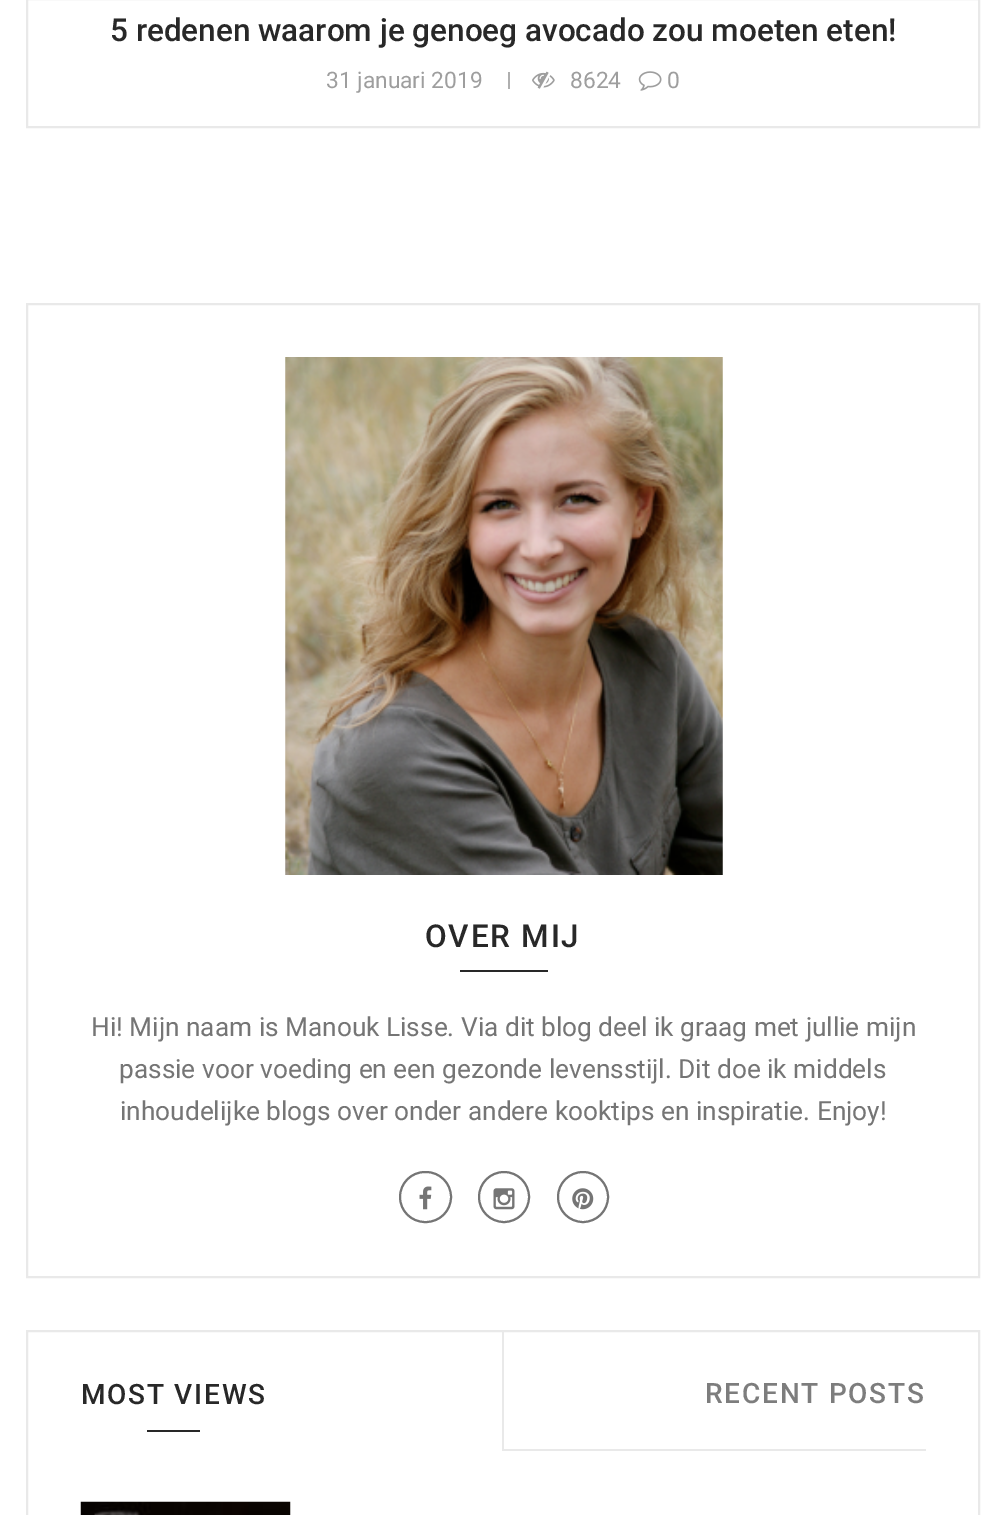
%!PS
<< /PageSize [1005 1515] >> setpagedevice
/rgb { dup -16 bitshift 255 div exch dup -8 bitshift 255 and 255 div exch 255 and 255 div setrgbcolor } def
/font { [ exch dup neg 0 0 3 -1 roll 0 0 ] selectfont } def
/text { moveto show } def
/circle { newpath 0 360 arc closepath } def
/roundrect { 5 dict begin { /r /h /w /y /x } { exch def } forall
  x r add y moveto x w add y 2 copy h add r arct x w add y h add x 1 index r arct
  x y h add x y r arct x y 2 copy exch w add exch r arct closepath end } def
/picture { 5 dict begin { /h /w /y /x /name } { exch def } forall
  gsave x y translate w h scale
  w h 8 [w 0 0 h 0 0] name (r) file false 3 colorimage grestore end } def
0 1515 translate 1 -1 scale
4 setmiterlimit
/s1 { /Roboto-Medium 31.5 font 16#282828 rgb } def
/s2 { /Roboto-Regular 22.75 font 16#9E9E9E rgb } def
/s3 { /Roboto-Regular 26.25 font 16#757575 rgb } def
16#FFFFFF rgb
0 0 1005 1515 rectfill
16#E9E9E9 rgb
2 setlinewidth
27 -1 952 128 rectstroke
s1
(5 redenen waarom je genoeg avocado zou moeten eten!) 110 41 text
s2
(31 januari 2019) 326 88 text
16#AFAFAF rgb
508 72 2 17 rectfill
(pic1.raw) 532 71 23 18 picture
s2
(8624) 570 88 text
(pic2.raw) 638 71 24 20 picture
(0) 667 88 text
16#E9E9E9 rgb
27 304 952 973 rectstroke
(pic3.raw) 285 357 438 518 picture
/Roboto-Medium 31.5 font
16#282828 rgb
425 947 moveto 1.75 0 (OVER MIJ) ashow
460 970 88 2 rectfill
s3
(Hi! Mijn naam is Manouk Lisse. Via dit blog deel ik graag met jullie mijn) 91 1036 text
(passie voor voeding en een gezonde levensstijl. Dit doe ik middels) 119 1078 text
(inhoudelijke blogs over onder andere kooktips en inspiratie. Enjoy!) 120 1120 text
400 1172 51 50 25 roundrect stroke
(pic4.raw) 419 1186 13 24 picture
504 1197 25 circle stroke
(pic5.raw) 493 1188 22 22 picture
583 1197 25 circle stroke
(pic6.raw) 572 1188 22 22 picture
16#E9E9E9 rgb
27 1331 952 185 rectstroke
502 1332 2 119 rectfill
/Roboto-Medium 28 font
16#282828 rgb
81 1404 moveto 1.75 0 (MOST VIEWS) ashow
147 1430 53 2 rectfill
16#E9E9E9 rgb
504 1449 422 2 rectfill
16#7D7D7D rgb
705 1403 moveto 1.75 0 (RECENT POSTS) ashow
(pic7.raw) 80 1501 211 14 picture
showpage
